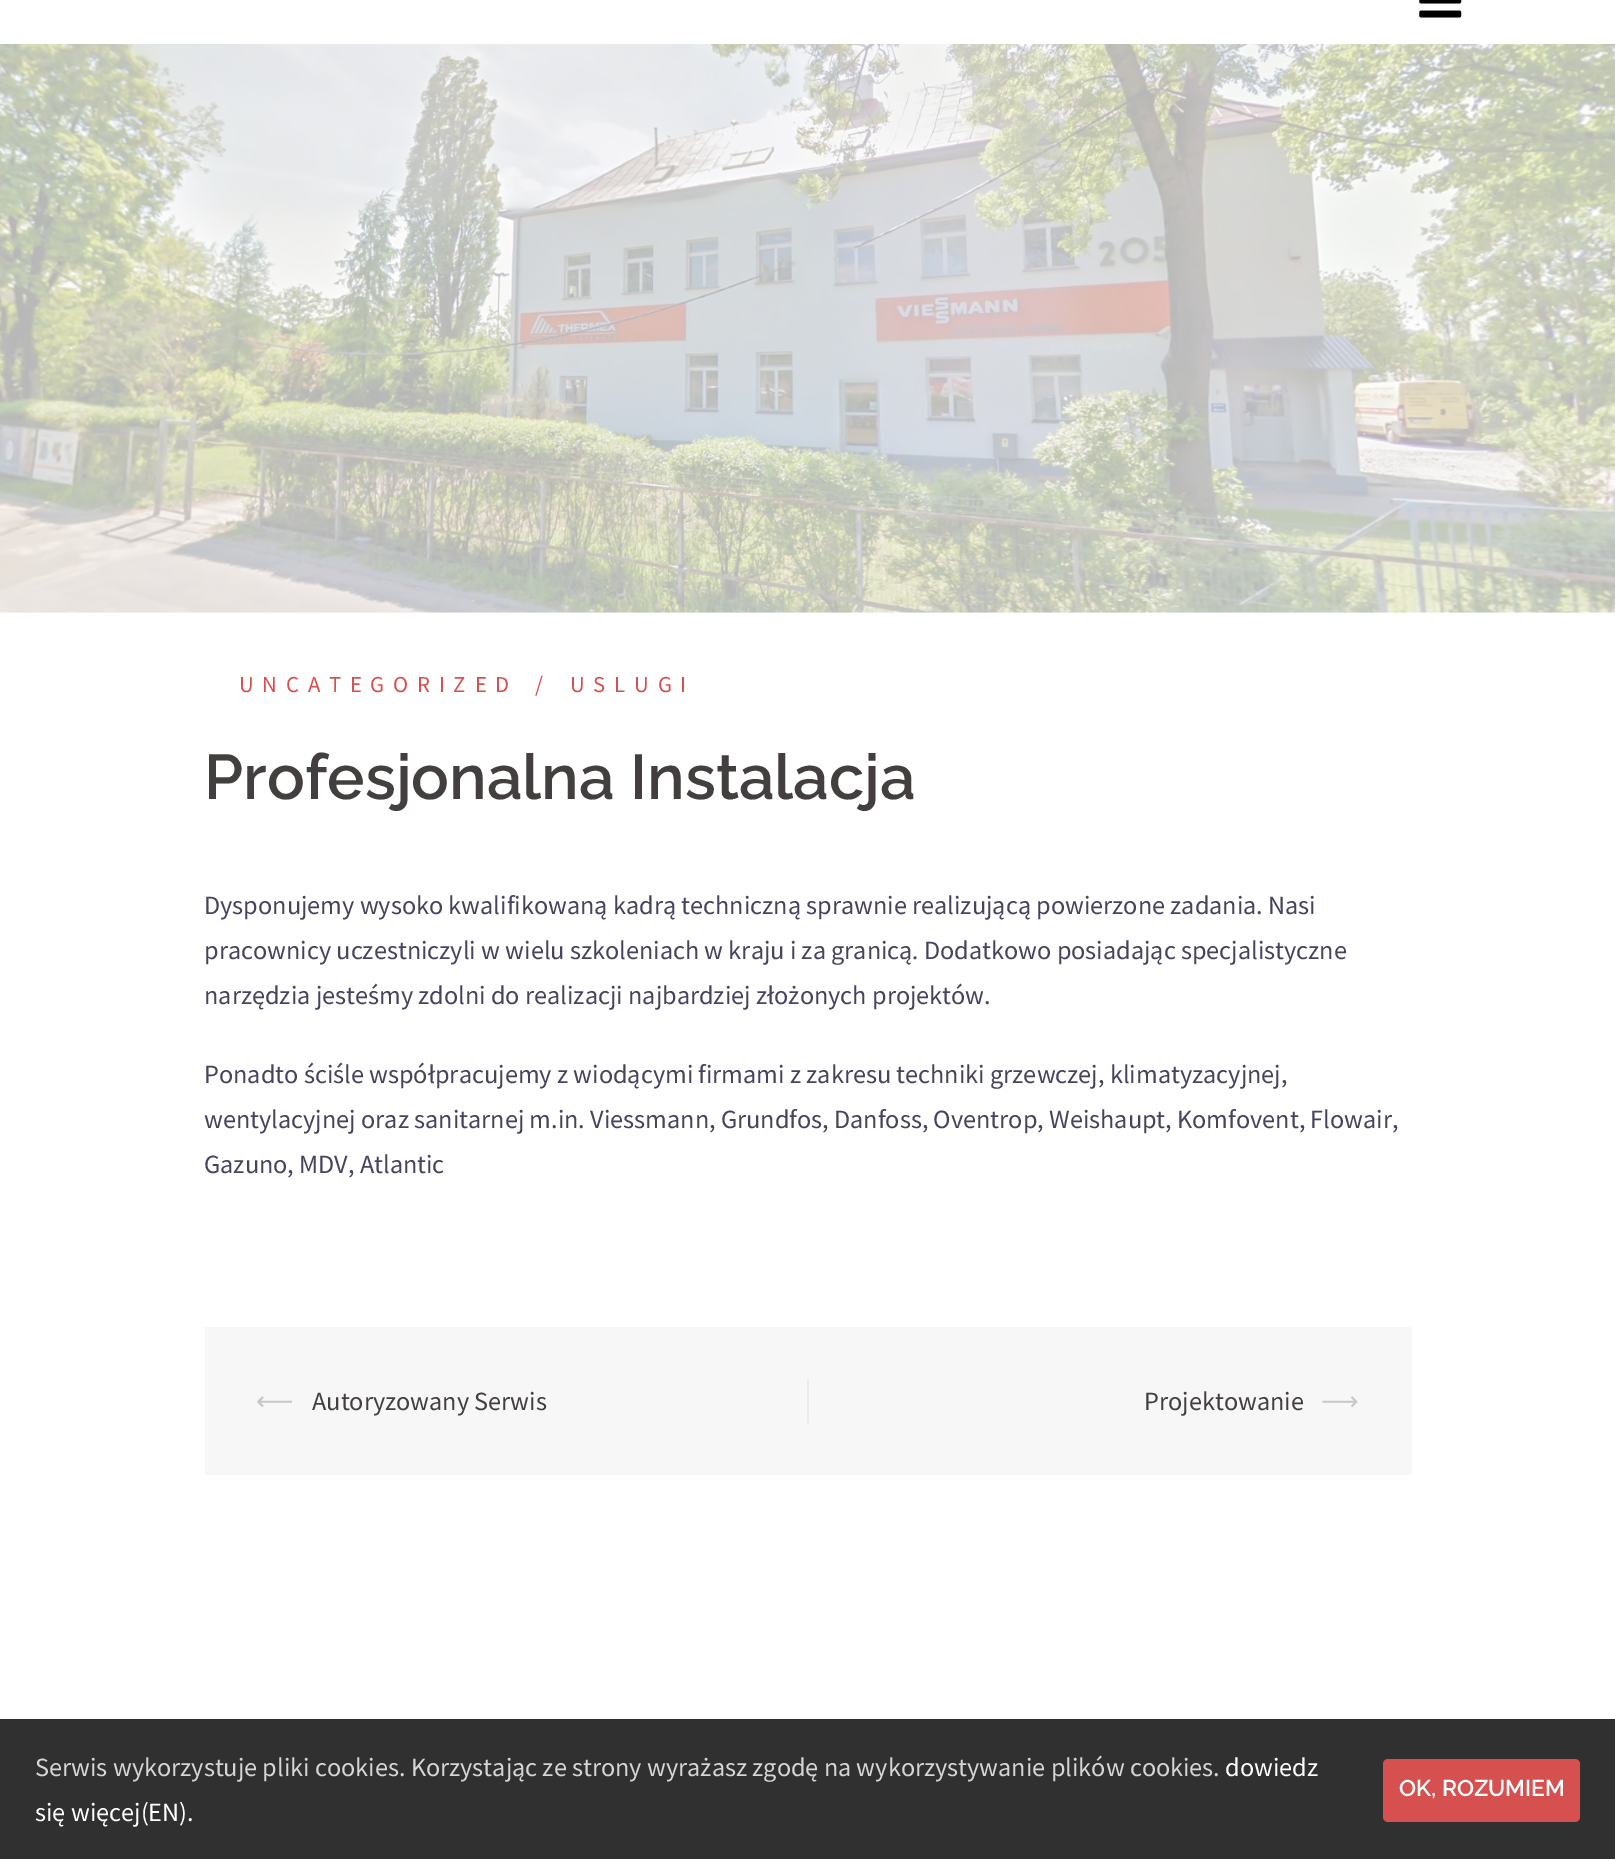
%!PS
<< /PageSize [1615 1859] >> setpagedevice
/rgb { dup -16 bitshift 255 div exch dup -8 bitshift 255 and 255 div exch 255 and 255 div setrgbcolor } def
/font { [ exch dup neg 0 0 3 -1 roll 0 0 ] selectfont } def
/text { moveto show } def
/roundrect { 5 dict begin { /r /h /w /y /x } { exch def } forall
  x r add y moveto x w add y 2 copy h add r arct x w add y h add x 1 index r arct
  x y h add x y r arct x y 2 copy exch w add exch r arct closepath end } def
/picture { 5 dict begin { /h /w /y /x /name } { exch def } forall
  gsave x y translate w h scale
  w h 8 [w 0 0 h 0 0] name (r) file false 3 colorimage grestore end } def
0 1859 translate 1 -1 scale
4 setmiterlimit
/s1 { /Raleway-SemiBold 63 font 16#443F3F rgb } def
/s2 { /SourceSansPro-Regular 26.25 font 16#47425D rgb } def
/s3 { /SourceSansPro-Italic 26.25 font 16#47425D rgb } def
/s4 { /DejaVuSans-Regular 26.25 font 16#C7C7C7 rgb } def
/s5 { /SourceSansPro-Regular 26.25 font 16#443F3F rgb } def
/s6 { /SourceSansPro-Regular 26.25 font 16#D6D6D6 rgb } def
/s7 { /SourceSansPro-Regular 26.25 font 16#FFFFFF rgb } def
/s8 { /Raleway-SemiBold 22.75 font 16#FFFFFF rgb } def
16#FFFFFF rgb
0 0 1615 1859 rectfill
(pic1.raw) 1419 0 43 18 picture
(pic2.raw) 0 44 1615 569 picture
/SourceSansPro-Regular 22.75 font
16#D65050 rgb
239 692 moveto 8.75 0 (UNCATEGORIZED) ashow
535 692 moveto 8.75 0 (/) ashow
570 692 moveto 8.75 0 (USLUGI) ashow
s1
(Profesjonalna Instalacja) 204 799 text
s2
(Dysponujemy wysoko kwalifikowaną kadrą techniczną sprawnie realizującą powierzone zadania. Nasi) 204 914 text
(pracownicy uczestniczyli w wielu szkoleniach w kraju i za granicą) 204 959 text
s3
(.) 913 959 text
s2
(Dodatkowo posiadając specjalistyczne) 924 959 text
(narzędzia jesteśmy zdolni do realizacji najbardziej złożonych projektów.) 204 1004 text
(Ponadto ściśle współpracujemy z wiodącymi firmami z zakresu techniki grzewczej, klimatyzacyjnej,) 204 1083 text
(wentylacyjnej oraz sanitarnej m.in. Viessmann, Grundfos, Danfoss, Oventrop, Weishaupt, Komfovent, Flowair,) 204 1128 text
(Gazuno, MDV, Atlantic) 204 1173 text
16#F7F7F7 rgb
205 1327 1207 148 rectfill
16#EBEBEB rgb
807 1379 2 44 rectfill
s4
(⟵) 256 1410 text
s5
(Autoryzowany Serwis) 312 1410 text
(Projektowanie) 1144 1410 text
s4
(⟶) 1321 1410 text
16#303030 rgb
0 1719 1615 140 rectfill
s6
(Serwis wykorzystuje pliki cookies. Korzystając ze strony wyrażasz zgodę na wykorzystywanie plików cookies.) 35 1776 text
s7
(dowiedz) 1225 1776 text
(się więcej\(EN\).) 35 1821 text
16#D65050 rgb
1383 1759 197 63 5 roundrect fill
s8
(OK, ROZUMIEM) 1399 1796 text
showpage
